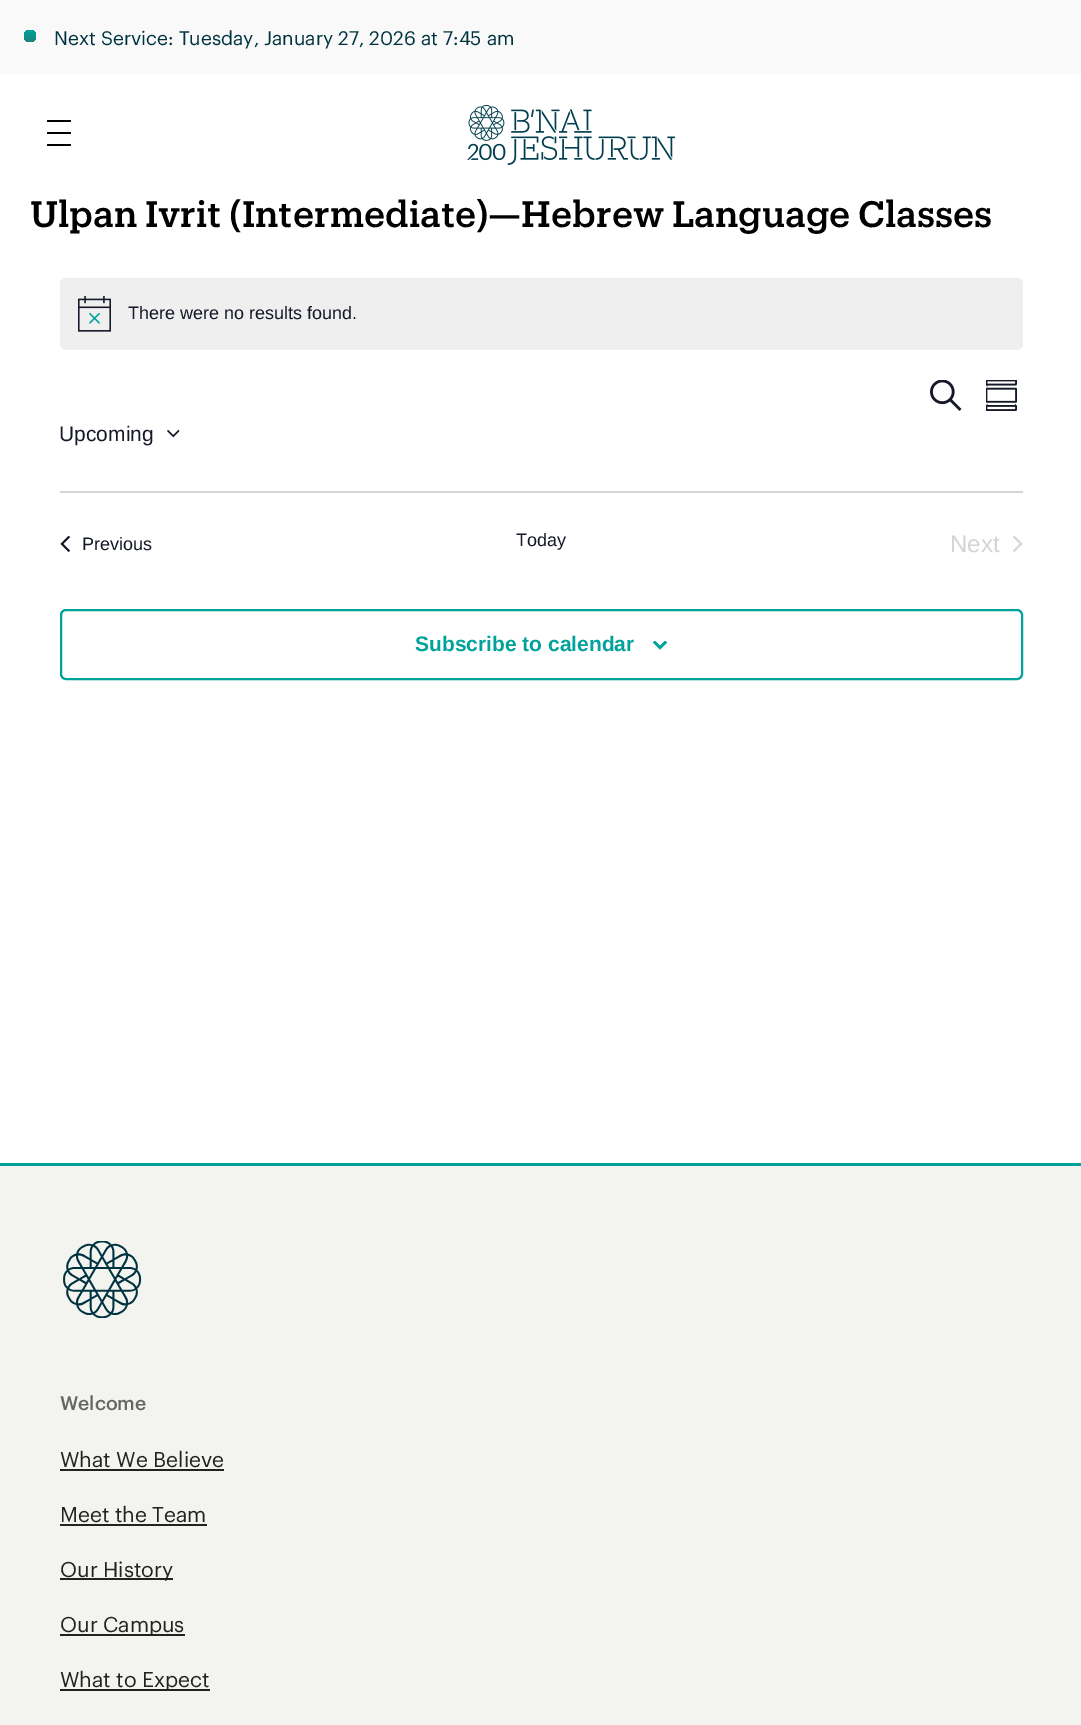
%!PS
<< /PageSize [1081 1725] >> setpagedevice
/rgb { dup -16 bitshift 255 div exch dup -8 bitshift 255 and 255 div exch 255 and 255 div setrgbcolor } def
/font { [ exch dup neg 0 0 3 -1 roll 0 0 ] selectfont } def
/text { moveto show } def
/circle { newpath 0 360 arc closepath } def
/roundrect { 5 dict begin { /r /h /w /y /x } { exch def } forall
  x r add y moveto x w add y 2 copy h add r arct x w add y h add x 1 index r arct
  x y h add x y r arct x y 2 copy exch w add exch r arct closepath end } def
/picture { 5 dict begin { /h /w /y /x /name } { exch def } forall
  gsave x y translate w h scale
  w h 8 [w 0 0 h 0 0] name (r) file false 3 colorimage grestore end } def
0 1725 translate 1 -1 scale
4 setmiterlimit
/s1 { /Graphik-Regular 19.2 font 16#003340 rgb } def
/s2 { /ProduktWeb-Medium 36 font 16#000000 rgb } def
/s3 { /LiberationSans-Regular 18 font 16#141827 rgb } def
/s4 { /LiberationSans-Regular 21 font 16#141827 rgb } def
/s5 { /LiberationSans-Regular 24 font 16#D5D5D5 rgb } def
/s6 { /LiberationSans-Bold 21 font 16#00A29B rgb } def
/s7 { /Graphik-Medium 19.2 font 16#666666 rgb } def
/s8 { /Graphik-Regular 21 font 16#222222 rgb } def
16#FFFFFF rgb
0 0 1081 1725 rectfill
16#F9F9F9 rgb
0 0 1081 74 rectfill
gsave 30 36 6 circle clip newpath
<< /ShadingType 2 /ColorSpace /DeviceRGB /Coords [30 30 30 42] /Extend [true true] /Function << /FunctionType 2 /Domain [0 1] /C0 [0 0.635 0.608] /C1 [0.122 0.514 0.486] /N 1 >> >> shfill grestore
s1
(Next Service: Tuesday, January 27, 2026 at 7:45 am) 54 45 text
16#000000 rgb
47 120 24 2 1 roundrect fill
47 132 24 2 1 roundrect fill
47 144 24 2 1 roundrect fill
(pic1.raw) 467 105 208 60 picture
s2
(Ulpan Ivrit \(Intermediate\)—Hebrew Language Classes) 30 227 text
16#EFEFF0 rgb
60 278 963 72 6 roundrect fill
(pic2.raw) 78 296 33 36 picture
s3
(There were no results found.) 128 319 text
(pic3.raw) 930 380 32 31 picture
(pic4.raw) 986 380 31 31 picture
s4
(Upcoming) 59 441 text
(pic5.raw) 167 429 13 9 picture
16#D5D5D5 rgb
60 491 963 2 rectfill
(pic6.raw) 60 536 11 16 picture
s3
(Previous) 82 550 text
(Today) 516 546 text
s5
(Next) 950 552 text
(pic7.raw) 1013 536 10 16 picture
16#00A29B rgb
2 setlinewidth
61 610 961 69 5 roundrect stroke
s6
(Subscribe to calendar) 415 651 text
(pic8.raw) 653 641 15 9 picture
16#F3F3F0 rgb
0 1166 1081 559 rectfill
16#00A29B rgb
0 1163 1081 3 rectfill
(pic9.raw) 63 1241 79 77 picture
s7
(Welcome) 60 1410 text
s8
(What We Believe) 60 1467 text
60 1469 164 2 rectfill
(Meet the Team) 60 1522 text
60 1524 147 2 rectfill
60 1578 113 2 rectfill
(Our History) 60 1577 text
60 1634 125 2 rectfill
(Our Campus) 60 1632 text
60 1689 150 2 rectfill
(What to Expect) 60 1687 text
showpage
